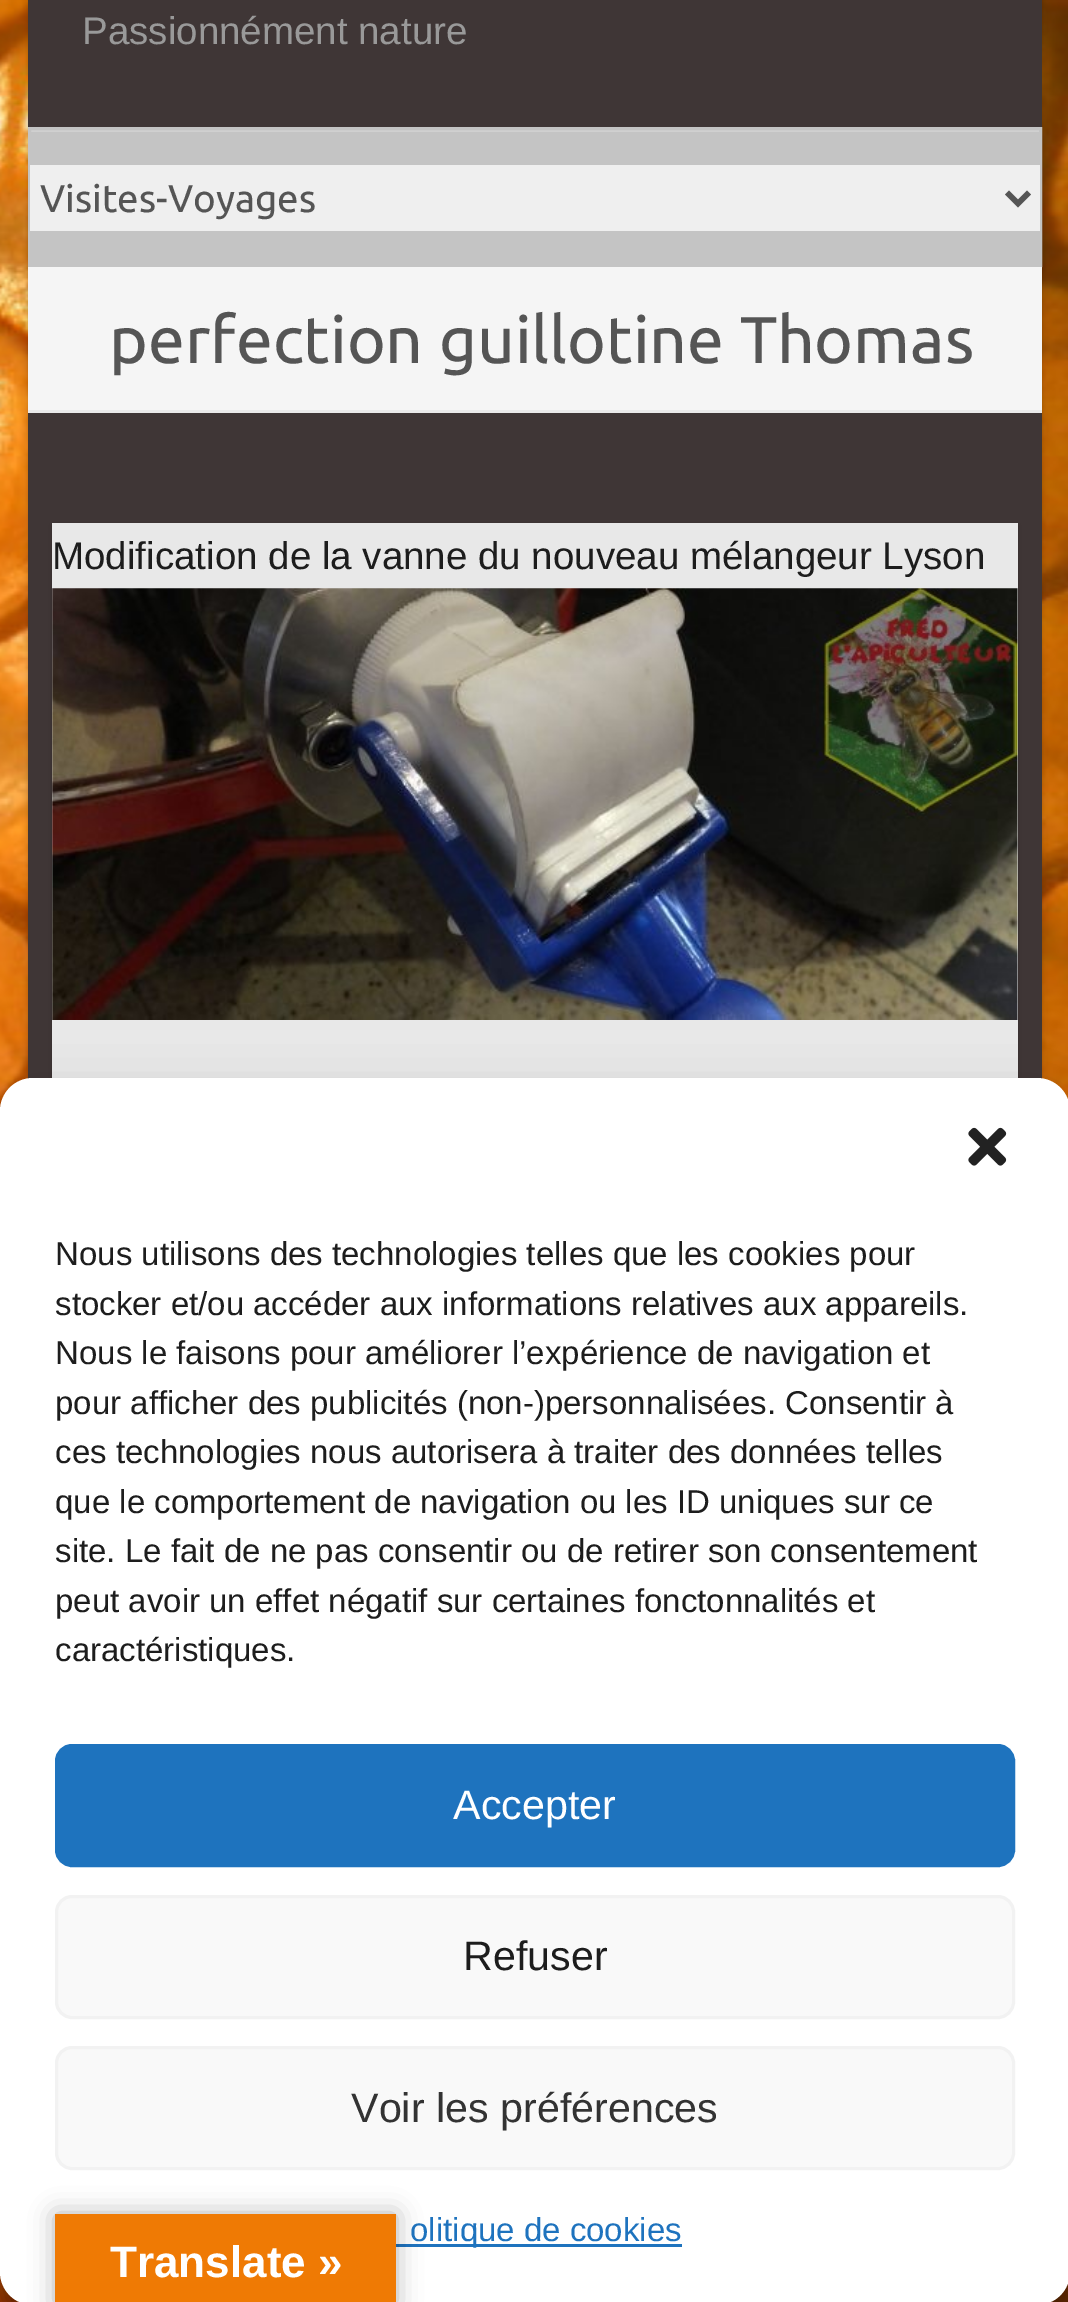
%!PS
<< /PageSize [1068 2302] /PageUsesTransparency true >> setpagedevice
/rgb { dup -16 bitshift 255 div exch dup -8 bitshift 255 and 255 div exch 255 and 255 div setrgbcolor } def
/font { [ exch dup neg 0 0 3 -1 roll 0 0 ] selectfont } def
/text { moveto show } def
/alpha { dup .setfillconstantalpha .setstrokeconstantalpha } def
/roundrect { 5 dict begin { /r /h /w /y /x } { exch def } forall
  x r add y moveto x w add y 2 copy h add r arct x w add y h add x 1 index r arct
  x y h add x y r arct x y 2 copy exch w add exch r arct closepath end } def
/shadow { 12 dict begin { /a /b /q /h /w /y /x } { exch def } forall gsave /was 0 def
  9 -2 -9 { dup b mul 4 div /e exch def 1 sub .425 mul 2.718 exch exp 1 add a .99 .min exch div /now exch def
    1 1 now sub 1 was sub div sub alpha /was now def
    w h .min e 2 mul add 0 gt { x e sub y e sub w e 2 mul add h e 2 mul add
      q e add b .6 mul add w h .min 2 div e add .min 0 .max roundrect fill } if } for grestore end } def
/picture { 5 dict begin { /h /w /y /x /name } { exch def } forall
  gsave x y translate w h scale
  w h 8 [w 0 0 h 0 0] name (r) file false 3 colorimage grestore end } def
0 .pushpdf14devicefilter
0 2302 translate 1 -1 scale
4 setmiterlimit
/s1 { /LiberationSans-Regular 38.5 font 16#999999 rgb } def
/s2 { /Ubuntu-Regular 38.5 font 16#555555 rgb } def
/s3 { /Ubuntu-Regular 66 font 16#555555 rgb } def
/s4 { /LiberationSans-Regular 38.5 font 16#1D1D1D rgb } def
/s5 { /LiberationSans-Regular 33 font 16#1D1D1D rgb } def
/s6 { /LiberationSans-Regular 41.25 font 16#FFFFFF rgb } def
/s7 { /LiberationSans-Regular 41.25 font 16#1D1D1D rgb } def
/s8 { /LiberationSans-Regular 41.25 font 16#333333 rgb } def
/s9 { /LiberationSans-Regular 33 font 16#1E73BE rgb } def
/s10 { /LiberationSans-Bold 44 font 16#FFFFFF rgb } def
16#FFFFFF rgb
0 0 1068 2302 rectfill
(pic1.raw) 0 0 1068 2302 picture
16#000000 rgb
28 -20 1014 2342 11 3 0.2 shadow
16#3F3636 rgb
28 0 1014 1079 rectfill
s1
(Passionnément nature) 82 44 text
16#C4C4C4 rgb
31 132 1008 132 rectfill
16#D0D0D0 rgb
30 130 1010 2 rectfill
16#C4C4C4 rgb
3 setlinewidth
29.5 128.5 1011 137 rectstroke
16#EFEFEF rgb
30 165 1010 66 rectfill
16#555555 rgb
5.5 setlinewidth
1007 192.5 moveto 1018 203.5 lineto 1029 192.5 lineto stroke
s2
(Visites-Voyages) 40 212 text
16#F5F5F5 rgb
28 267 1014 143 rectfill
16#EAEAEA rgb
28 410 1014 3 rectfill
s3
(perfection guillotine Thomas) 109 363 text
16#000000 rgb
52 525 966 1681 0 3 0.2 shadow
16#E8E8E8 rgb
52 523 966 555 rectfill
s4
(Modification de la vanne du nouveau mélangeur Lyson) 52 569 text
(pic2.raw) 52 588 966 432 picture
16#000000 rgb
0 1095 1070 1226 33 8 0.23 shadow
0 1106 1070 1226 33 27.5 0.19 shadow
16#FFFFFF rgb
0 1078 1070 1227 33 roundrect fill
(pic3.raw) 968 1127 39 39 picture
s5
(Nous utilisons des technologies telles que les cookies pour) 55 1265 text
(stocker et/ou accéder aux informations relatives aux appareils.) 55 1315 text
(Nous le faisons pour améliorer l’expérience de navigation et) 55 1364 text
(pour afficher des publicités \(non-\)personnalisées. Consentir à) 55 1414 text
(ces technologies nous autorisera à traiter des données telles) 55 1463 text
(que le comportement de navigation ou les ID uniques sur ce) 55 1513 text
(site. Le fait de ne pas consentir ou de retirer son consentement) 55 1562 text
(peut avoir un effet négatif sur certaines fonctonnalités et) 55 1612 text
(caractéristiques.) 55 1661 text
16#1E73BE rgb
56.5 1745.5 957 120 15.5 roundrect gsave fill grestore
3 setlinewidth
stroke
s6
(Accepter) 453 1819 text
16#F9F9F9 rgb
56.5 1896.5 957 121 15.5 roundrect gsave fill grestore
16#F2F2F2 rgb
stroke
s7
(Refuser) 463 1970 text
16#F9F9F9 rgb
56.5 2047.5 957 121 15.5 roundrect gsave fill grestore
16#F2F2F2 rgb
stroke
s8
(Voir les préférences) 351 2122 text
16#1E73BE rgb
388 2244 294 3 rectfill
s9
(olitique de cookies) 410 2241 text
16#000000 rgb
55 2214 341 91 0 12.5 0.3 shadow
16#EF7A04 rgb
55 2214 341 88 rectfill
s10
(Translate ») 110 2277 text
.poppdf14devicefilter showpage
